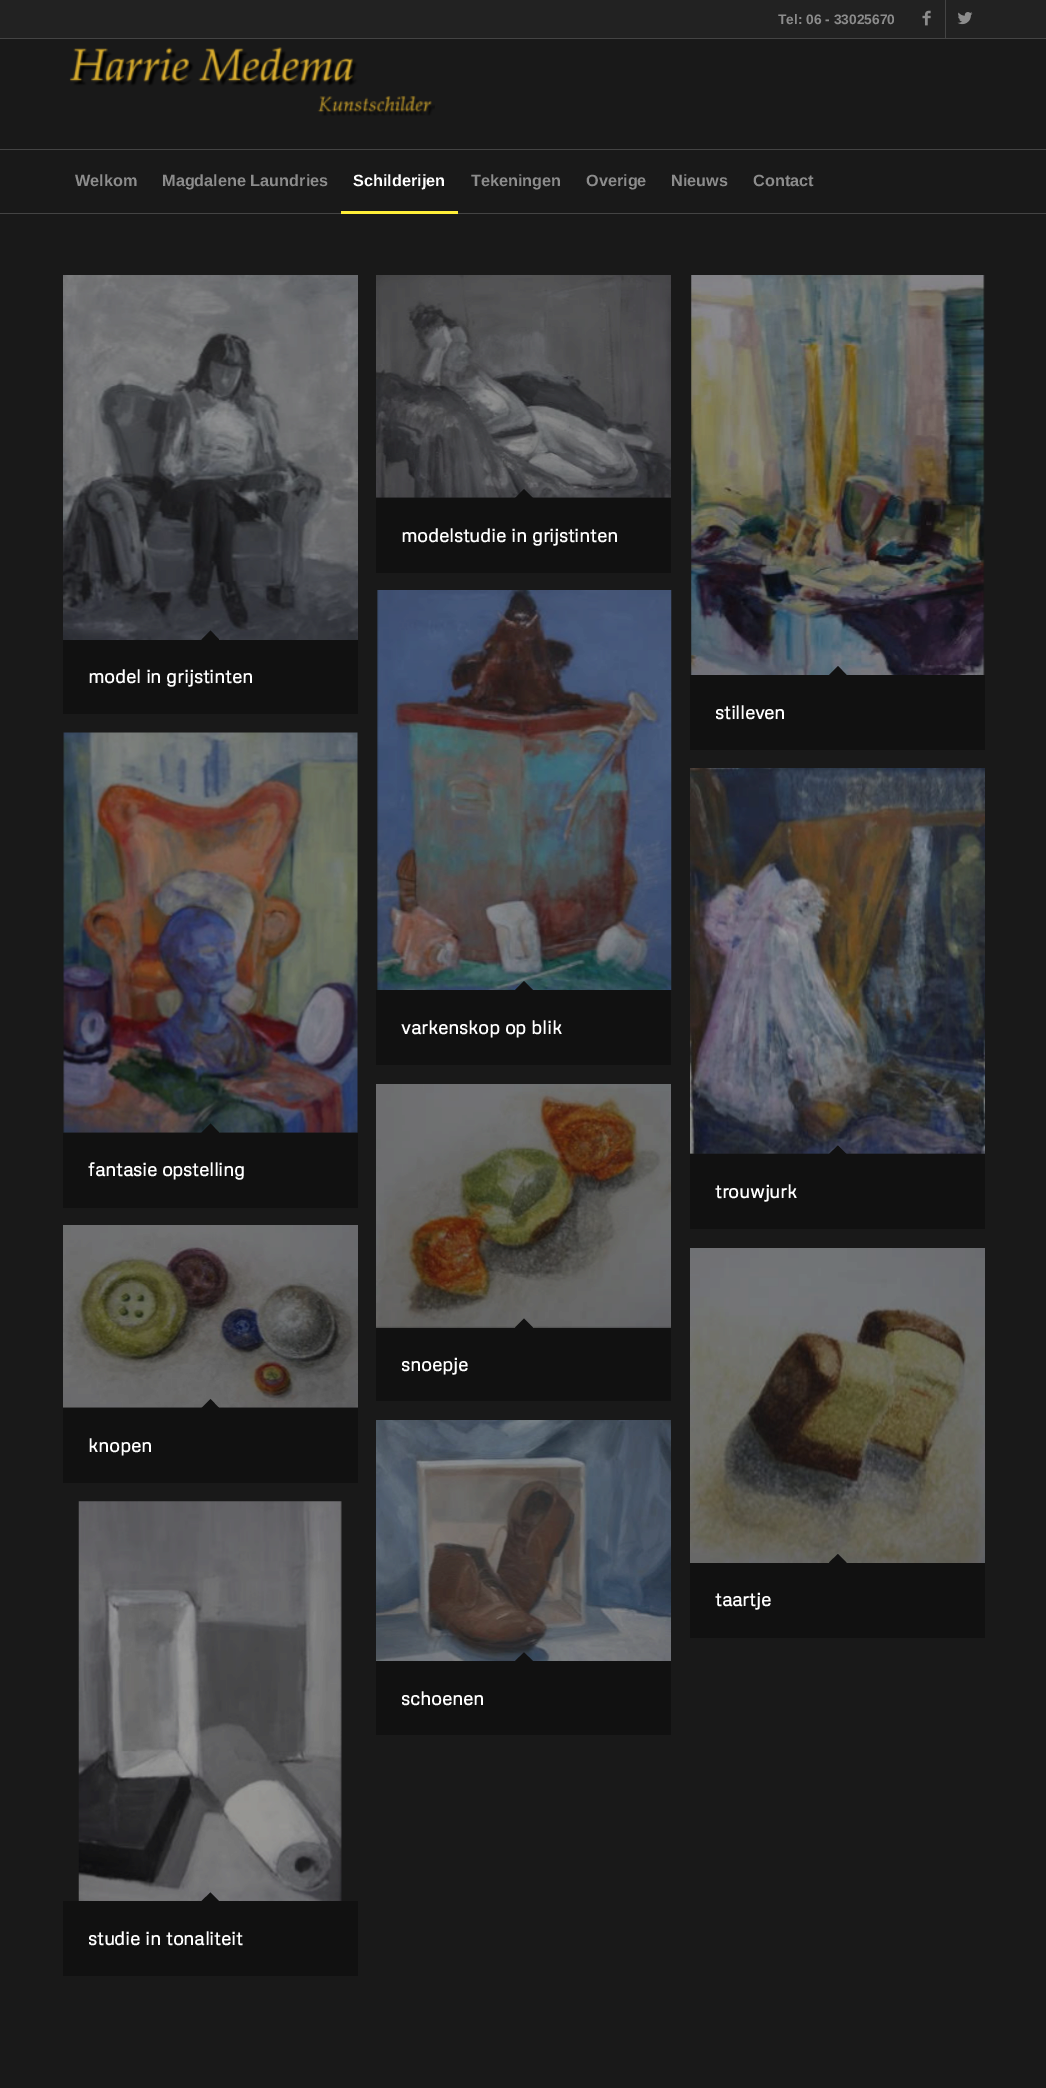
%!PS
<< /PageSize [1046 2088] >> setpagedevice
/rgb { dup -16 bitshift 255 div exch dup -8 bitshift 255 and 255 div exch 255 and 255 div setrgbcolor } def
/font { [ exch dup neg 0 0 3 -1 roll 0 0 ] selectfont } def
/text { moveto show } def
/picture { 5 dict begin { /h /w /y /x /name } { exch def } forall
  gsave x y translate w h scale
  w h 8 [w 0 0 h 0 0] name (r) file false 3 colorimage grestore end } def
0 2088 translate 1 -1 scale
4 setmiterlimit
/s1 { /LiberationSans-Bold 13.75 font 16#8C8C8C rgb } def
/s2 { /LiberationSans-Bold 16.25 font 16#8C8C8C rgb } def
/s3 { /LiberationSans-Bold 16.25 font 16#FFFFFF rgb } def
/s4 { /Metrophobic-Bold 18.75 font 16#FFFFFF rgb } def
16#191919 rgb
0 0 1046 2088 rectfill
16#222222 rgb
0 0 1046 38 rectfill
16#444444 rgb
0 38 1046 1 rectfill
s1
(Tel: 06 - 33025670) 778 24 text
16#444444 rgb
945 0 1 38 rectfill
(pic1.raw) 922 10 9 16 picture
(pic2.raw) 957 12 16 13 picture
0 213 1046 1 rectfill
(pic3.raw) 69 47 366 69 picture
0 149 1046 1 rectfill
s2
(Welkom) 75 186 text
(Magdalene Laundries) 162 186 text
s3
(Schilderijen) 353 186 text
16#FFEE38 rgb
341 211 117 3 rectfill
s2
(Tekeningen) 471 186 text
(Overige) 586 186 text
(Nieuws) 671 186 text
(Contact) 753 186 text
(pic4.raw) 376 275 295 223 picture
16#111111 rgb
376 498 295 75 rectfill
524 489 moveto 533 498 lineto 524 507 lineto 515 498 lineto closepath fill
s4
(modelstudie in grijstinten) 401 542 text
(pic5.raw) 63 275 295 365 picture
16#111111 rgb
63 640 295 74 rectfill
210.5 630.5 moveto 219 639.5 lineto 210.5 648.5 lineto 201.5 639.5 lineto closepath fill
s4
(model in grijstinten) 88 683 text
(pic6.raw) 691 275 294 400 picture
16#111111 rgb
690 675 295 75 rectfill
838 666 moveto 846.5 675 lineto 838 684 lineto 829 675 lineto closepath fill
s4
(stilleven) 715 719 text
(pic7.raw) 377 590 295 400 picture
16#111111 rgb
376 990 295 75 rectfill
524 981 moveto 533 990 lineto 524 999 lineto 515 990 lineto closepath fill
s4
(varkenskop op blik) 401 1034 text
(pic8.raw) 63 732 295 401 picture
16#111111 rgb
63 1133 295 75 rectfill
210.5 1123.5 moveto 219 1132.5 lineto 210.5 1141.5 lineto 201.5 1132.5 lineto closepath fill
s4
(fantasie opstelling) 88 1176 text
(pic9.raw) 690 768 295 386 picture
16#111111 rgb
690 1154 295 75 rectfill
838 1145.5 moveto 846.5 1154 lineto 838 1163 lineto 829 1154 lineto closepath fill
s4
(trouwjurk) 715 1198 text
(pic10.raw) 376 1084 295 244 picture
16#111111 rgb
376 1328 295 73 rectfill
524 1318.5 moveto 533 1327.5 lineto 524 1336.5 lineto 515 1327.5 lineto closepath fill
s4
(snoepje) 401 1371 text
(pic11.raw) 63 1225 295 183 picture
16#111111 rgb
63 1408 295 75 rectfill
210.5 1399 moveto 219 1408 lineto 210.5 1416.5 lineto 201.5 1408 lineto closepath fill
s4
(knopen) 88 1452 text
(pic12.raw) 690 1248 295 315 picture
16#111111 rgb
690 1563 295 75 rectfill
838 1554 moveto 846.5 1562.5 lineto 838 1571.5 lineto 829 1562.5 lineto closepath fill
s4
(taartje) 715 1606 text
(pic13.raw) 376 1420 295 241 picture
16#111111 rgb
376 1661 295 74 rectfill
524 1652.5 moveto 533 1661 lineto 524 1670 lineto 515 1661 lineto closepath fill
s4
(schoenen) 401 1705 text
(pic14.raw) 78 1501 264 400 picture
16#111111 rgb
63 1901 295 75 rectfill
210.5 1892.5 moveto 219 1901 lineto 210.5 1910 lineto 201.5 1901 lineto closepath fill
s4
(studie in tonaliteit) 88 1945 text
showpage
